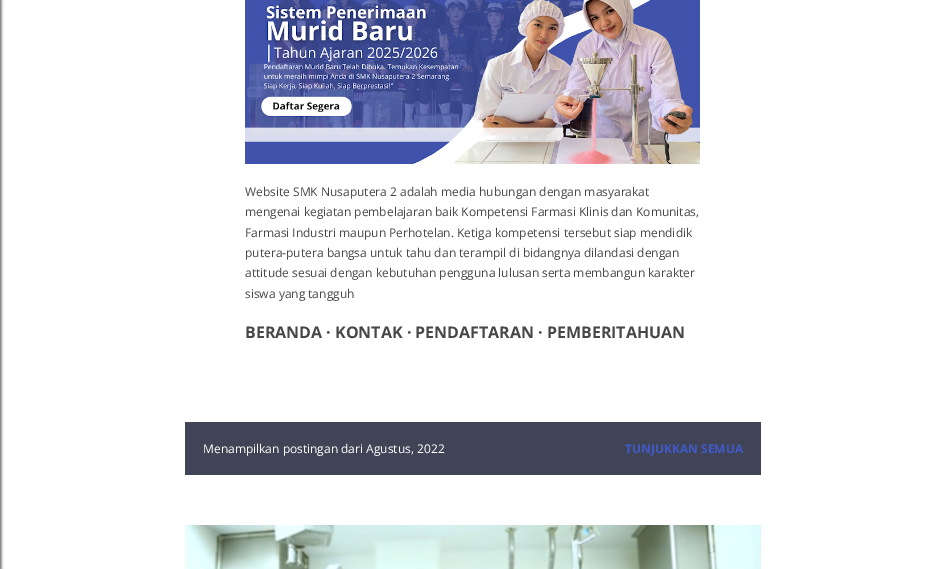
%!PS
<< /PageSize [945 569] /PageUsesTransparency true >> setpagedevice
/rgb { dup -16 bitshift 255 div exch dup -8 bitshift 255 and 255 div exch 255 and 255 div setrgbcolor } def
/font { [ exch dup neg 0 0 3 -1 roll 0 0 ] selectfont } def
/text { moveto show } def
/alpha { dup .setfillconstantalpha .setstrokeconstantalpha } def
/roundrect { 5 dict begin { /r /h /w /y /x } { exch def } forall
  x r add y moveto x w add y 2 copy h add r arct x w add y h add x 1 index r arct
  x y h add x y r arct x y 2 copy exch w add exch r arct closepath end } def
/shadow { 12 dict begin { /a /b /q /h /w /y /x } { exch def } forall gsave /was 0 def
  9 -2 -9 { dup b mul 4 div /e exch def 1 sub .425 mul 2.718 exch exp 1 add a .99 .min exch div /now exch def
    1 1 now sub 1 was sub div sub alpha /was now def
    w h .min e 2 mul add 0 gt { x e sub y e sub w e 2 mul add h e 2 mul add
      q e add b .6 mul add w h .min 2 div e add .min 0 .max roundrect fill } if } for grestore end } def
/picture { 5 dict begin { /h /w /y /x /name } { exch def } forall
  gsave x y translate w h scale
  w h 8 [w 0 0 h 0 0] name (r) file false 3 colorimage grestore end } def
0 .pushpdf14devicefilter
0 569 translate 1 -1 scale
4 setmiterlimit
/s1 { /OpenSans-Regular 12 font 16#474747 rgb } def
/s2 { /OpenSans-Bold 16 font 16#474747 rgb } def
/s3 { /OpenSans-Regular 12 font 16#FFFFFF rgb } def
/s4 { /OpenSans-Bold 12 font 16#3F5AC7 rgb } def
16#FFFFFF rgb
0 0 945 569 rectfill
16#474747 rgb
-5 0 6 569 0 1.5 1 shadow
(pic1.raw) 245 0 455 164 picture
s1
(Website SMK Nusaputera 2 adalah media hubungan dengan masyarakat) 245 196 text
(mengenai kegiatan pembelajaran baik Kompetensi Farmasi Klinis dan Komunitas,) 245 216 text
(Farmasi Industri maupun Perhotelan. Ketiga kompetensi tersebut siap mendidik) 245 237 text
(putera-putera bangsa untuk tahu dan terampil di bidangnya dilandasi dengan) 245 257 text
(attitude sesuai dengan kebutuhan pengguna lulusan serta membangun karakter) 245 277 text
(siswa yang tangguh) 245 298 text
s2
(BERANDA · KONTAK · PENDAFTARAN · PEMBERITAHUAN) 245 338 text
16#414456 rgb
185 422 576 53 rectfill
s3
(Menampilkan postingan dari Agustus, 2022) 203 453 text
s4
(TUNJUKKAN SEMUA) 625 453 text
(pic2.raw) 185 525 576 44 picture
.poppdf14devicefilter showpage
